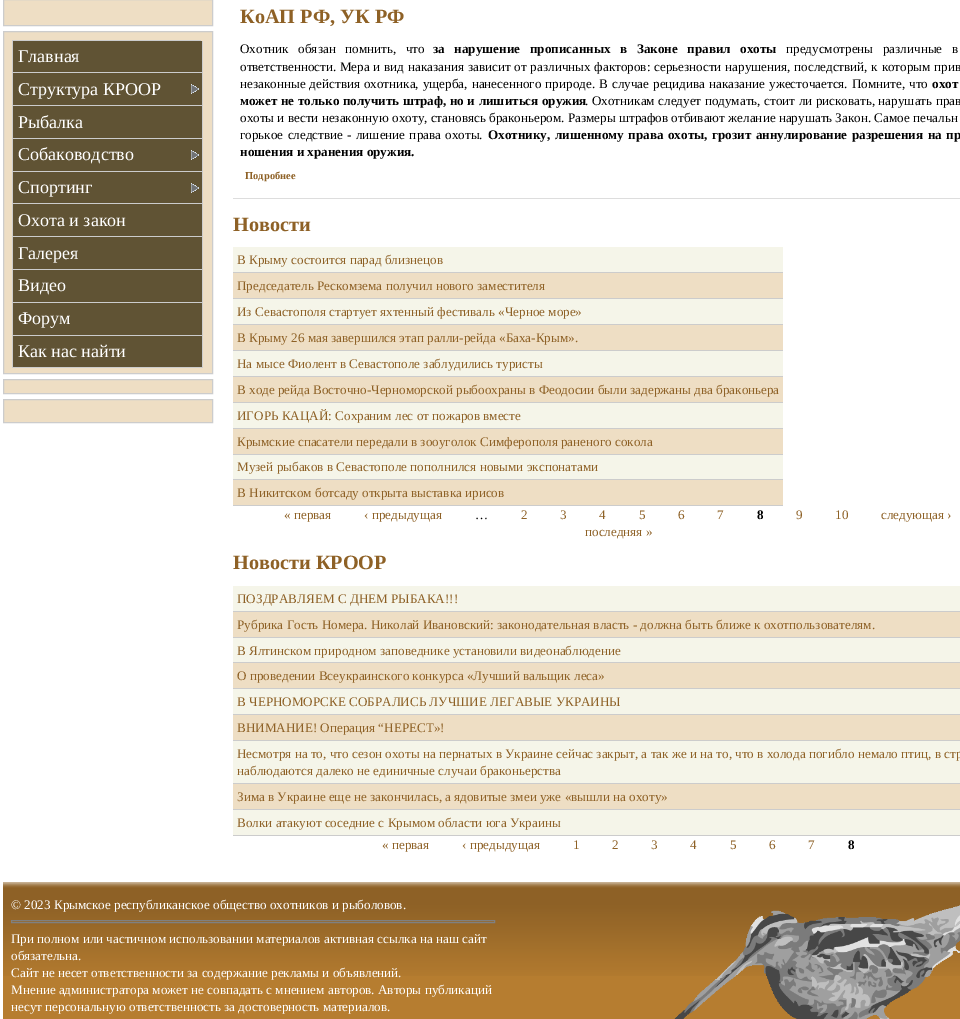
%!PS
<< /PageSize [960 1019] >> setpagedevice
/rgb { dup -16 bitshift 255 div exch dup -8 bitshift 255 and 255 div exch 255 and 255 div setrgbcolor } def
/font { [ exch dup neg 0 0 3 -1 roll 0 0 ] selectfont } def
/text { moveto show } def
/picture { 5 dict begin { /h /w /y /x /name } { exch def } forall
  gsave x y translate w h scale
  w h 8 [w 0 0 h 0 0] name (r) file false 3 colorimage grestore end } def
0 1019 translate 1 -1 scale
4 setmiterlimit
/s1 { /LiberationSerif-Regular 18 font 16#FFFFFF rgb } def
/s2 { /LiberationSerif-Bold 20.25 font 16#8E6126 rgb } def
/s3 { /LiberationSerif-Bold 13.12 font 16#000000 rgb } def
/s4 { /LiberationSerif-Regular 13.12 font 16#000000 rgb } def
/s5 { /LiberationSerif-Bold 10.5 font 16#8E6126 rgb } def
/s6 { /LiberationSerif-Regular 13.12 font 16#8E6126 rgb } def
/s7 { /LiberationSerif-Regular 13.12 font 16#FFFFFF rgb } def
16#FFFFFF rgb
0 0 960 1019 rectfill
16#EEDEC4 rgb
3.5 -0.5 moveto 212.5 -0.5 lineto 212.5 25.5 lineto 3.5 25.5 lineto closepath gsave fill grestore
16#CCCCCC rgb
stroke
16#EEDEC4 rgb
3.5 31.5 moveto 212.5 31.5 lineto 212.5 373.5 lineto 3.5 373.5 lineto closepath gsave fill grestore
16#CCCCCC rgb
stroke
12 40 189 1 rectfill
16#605334 rgb
13 41 189 31 rectfill
16#CCCCCC rgb
202 41 1 327 rectfill
12 72 191 1 rectfill
12 41 1 32 rectfill
s1
(Главная) 18 62 text
16#605334 rgb
13 73 189 32 rectfill
(pic1.raw) 191 84 8 10 picture
16#CCCCCC rgb
12 105 191 1 rectfill
12 73 1 33 rectfill
s1
(Структура КРООР) 18 95 text
16#605334 rgb
13 106 189 32 rectfill
16#CCCCCC rgb
12 138 191 1 rectfill
12 106 1 33 rectfill
s1
(Рыбалка) 18 128 text
16#605334 rgb
13 139 189 32 rectfill
(pic1.raw) 191 150 8 10 picture
16#CCCCCC rgb
12 171 191 1 rectfill
12 139 1 33 rectfill
s1
(Собаководство) 18 160 text
16#605334 rgb
13 172 189 31 rectfill
(pic1.raw) 191 183 8 10 picture
16#CCCCCC rgb
12 203 191 1 rectfill
12 172 1 32 rectfill
s1
(Спортинг) 18 193 text
16#605334 rgb
13 204 189 32 rectfill
16#CCCCCC rgb
12 236 191 1 rectfill
12 204 1 33 rectfill
s1
(Охота и закон) 18 226 text
16#605334 rgb
13 237 189 32 rectfill
16#CCCCCC rgb
12 269 191 1 rectfill
12 237 1 33 rectfill
s1
(Галерея) 18 259 text
16#605334 rgb
13 270 189 32 rectfill
16#CCCCCC rgb
12 302 191 1 rectfill
12 270 1 33 rectfill
s1
(Видео) 18 291 text
16#605334 rgb
13 303 189 32 rectfill
16#CCCCCC rgb
12 335 191 1 rectfill
12 303 1 33 rectfill
s1
(Форум) 18 324 text
16#605334 rgb
13 336 189 31 rectfill
16#CCCCCC rgb
12 367 191 1 rectfill
12 336 1 32 rectfill
s1
(Как нас найти) 18 357 text
16#EEDEC4 rgb
3.5 379.5 moveto 212.5 379.5 lineto 212.5 393.5 lineto 3.5 393.5 lineto closepath gsave fill grestore
16#CCCCCC rgb
stroke
16#EEDEC4 rgb
3.5 399.5 moveto 212.5 399.5 lineto 212.5 422.5 lineto 3.5 422.5 lineto closepath gsave fill grestore
16#CCCCCC rgb
stroke
16#DDDDDD rgb
233 198 727 1 rectfill
s2
(КоАП РФ, УК РФ) 240 23 text
/LiberationSerif-Regular 13.12 font
16#000000 rgb
240 53 moveto 6.25 0 32 (Охотник обязан помнить, что) widthshow
/LiberationSerif-Bold 13.12 font
433 53 moveto 6.25 0 32 (за нарушение прописанных в Законе правил охоты) widthshow
/LiberationSerif-Regular 13.12 font
786 53 moveto 6.25 0 32 (предусмотрены различные в) widthshow
240 71 moveto 0.5 0 32 (ответственности. Мера и вид наказания зависит от различных факторов: серьезности нарушения, последствий, к которым прив) widthshow
240 88 moveto 0.75 0 32 (незаконные действия охотника, ущерба, нанесенного природе. В случае рецидива наказание ужесточается. Помните, что) widthshow
s3
(охот) 932 88 text
240 105 moveto 0.25 0 32 (может не только получить штраф, но и лишиться оружия) widthshow
/LiberationSerif-Regular 13.12 font
585 105 moveto 0.25 0 32 (. Охотникам следует подумать, стоит ли рисковать, нарушать прав) widthshow
(охоты и вести незаконную охоту, становясь браконьером. Размеры штрафов отбивают желание нарушать Закон. Самое печальн) 240 122 text
240 139 moveto 1 0 32 (горькое следствие - лишение права охоты.) widthshow
/LiberationSerif-Bold 13.12 font
488 139 moveto 1.25 0 32 (Охотнику, лишенному права охоты, грозит аннулирование разрешения на пр) widthshow
(ношения и хранения оружия.) 240 156 text
s5
(Подробнее) 245 179 text
s2
(Новости) 233 231 text
16#F5F5E9 rgb
233 247 550 25 rectfill
16#CCCCCC rgb
233 272 550 1 rectfill
s6
(В Крыму состоится парад близнецов) 237 264 text
16#EEDEC4 rgb
233 273 550 25 rectfill
16#CCCCCC rgb
233 298 550 1 rectfill
s6
(Председатель Рескомзема получил нового заместителя) 237 290 text
16#F5F5E9 rgb
233 299 550 25 rectfill
16#CCCCCC rgb
233 324 550 1 rectfill
s6
(Из Севастополя стартует яхтенный фестиваль «Черное море») 237 316 text
16#EEDEC4 rgb
233 325 550 25 rectfill
16#CCCCCC rgb
233 350 550 1 rectfill
s6
(В Крыму 26 мая завершился этап ралли-рейда «Баха-Крым».) 237 342 text
16#F5F5E9 rgb
233 351 550 25 rectfill
16#CCCCCC rgb
233 376 550 1 rectfill
s6
(На мысе Фиолент в Севастополе заблудились туристы) 237 368 text
16#EEDEC4 rgb
233 377 550 25 rectfill
16#CCCCCC rgb
233 402 550 1 rectfill
s6
(В ходе рейда Восточно-Черноморской рыбоохраны в Феодосии были задержаны два браконьера) 237 394 text
16#F5F5E9 rgb
233 403 550 25 rectfill
16#CCCCCC rgb
233 428 550 1 rectfill
s6
(ИГОРЬ КАЦАЙ: Сохраним лес от пожаров вмеcте) 237 420 text
16#EEDEC4 rgb
233 429 550 25 rectfill
16#CCCCCC rgb
233 454 550 1 rectfill
s6
(Крымские спасатели передали в зооуголок Симферополя раненого сокола) 237 446 text
16#F5F5E9 rgb
233 455 550 24 rectfill
16#CCCCCC rgb
233 479 550 1 rectfill
s6
(Музей рыбаков в Севастополе пополнился новыми экспонатами) 237 471 text
16#EEDEC4 rgb
233 480 550 25 rectfill
16#CCCCCC rgb
233 505 550 1 rectfill
s6
(В Никитском ботсаду открыта выставка ирисов) 237 497 text
(« первая) 284 519 text
(‹ предыдущая) 364 519 text
s4
(…) 475 519 text
s6
(2) 521 519 text
(3) 560 519 text
(4) 599 519 text
(5) 639 519 text
(6) 678 519 text
(7) 717 519 text
s3
(8) 757 519 text
s6
(9) 796 519 text
(10) 835 519 text
(следующая ›) 881 519 text
(последняя ») 585 536 text
s2
(Новости КРООР) 233 569 text
16#F5F5E9 rgb
233 586 727 25 rectfill
16#CCCCCC rgb
233 611 727 1 rectfill
s6
(ПОЗДРАВЛЯЕМ С ДНЕМ РЫБАКА!!!) 237 603 text
16#EEDEC4 rgb
233 612 727 25 rectfill
16#CCCCCC rgb
233 637 727 1 rectfill
s6
(Рубрика Гость Номера. Николай Ивановский: законодательная власть - должна быть ближе к охотпользователям.) 237 629 text
16#F5F5E9 rgb
233 638 727 24 rectfill
16#CCCCCC rgb
233 662 727 1 rectfill
s6
(В Ялтинском природном заповеднике установили видеонаблюдение) 237 655 text
16#EEDEC4 rgb
233 663 727 25 rectfill
16#CCCCCC rgb
233 688 727 1 rectfill
s6
(О проведении Всеукраинского конкурса «Лучший вальщик леса») 237 680 text
16#F5F5E9 rgb
233 689 727 25 rectfill
16#CCCCCC rgb
233 714 727 1 rectfill
s6
(В ЧЕРНОМОРСКЕ СОБРАЛИСЬ ЛУЧШИЕ ЛЕГАВЫЕ УКРАИНЫ) 237 706 text
16#EEDEC4 rgb
233 715 727 25 rectfill
16#CCCCCC rgb
233 740 727 1 rectfill
s6
(ВНИМАНИЕ! Операция “НЕРЕСТ»!) 237 732 text
16#F5F5E9 rgb
233 741 727 42 rectfill
16#CCCCCC rgb
233 783 727 1 rectfill
s6
(Несмотря на то, что сезон охоты на пернатых в Украине сейчас закрыт, а так же и на то, что в холода погибло немало птиц, в стр) 237 758 text
(наблюдаются далеко не единичные случаи браконьерства) 237 775 text
16#EEDEC4 rgb
233 784 727 25 rectfill
16#CCCCCC rgb
233 809 727 1 rectfill
s6
(Зима в Украине еще не закончилась, а ядовитые змеи уже «вышли на охоту») 237 801 text
16#F5F5E9 rgb
233 810 727 25 rectfill
16#CCCCCC rgb
233 835 727 1 rectfill
s6
(Волки атакуют соседние с Крымом области юга Украины) 237 827 text
(« первая) 382 849 text
(‹ предыдущая) 462 849 text
(1) 573 849 text
(2) 612 849 text
(3) 651 849 text
(4) 690 849 text
(5) 730 849 text
(6) 769 849 text
(7) 808 849 text
s3
(8) 848 849 text
16#B67D30 rgb
3 976 957 43 rectfill
(pic2.raw) 3 882 957 94 picture
s7
(© 2023 Крымское республиканское общество охотников и рыболовов.) 11 909 text
16#808080 rgb
11.5 920.5 483 2 rectstroke
s7
(При полном или частичном использовании материалов активная ссылка на наш сайт) 11 943 text
(обязательна.) 11 960 text
(Сайт не несет ответственности за содержание рекламы и объявлений.) 11 977 text
(Мнение администратора может не совпадать с мнением авторов. Авторы публикаций) 11 994 text
(несут персональную ответственность за достоверность материалов.) 11 1011 text
(pic3.raw) 674 905 286 114 picture
showpage
